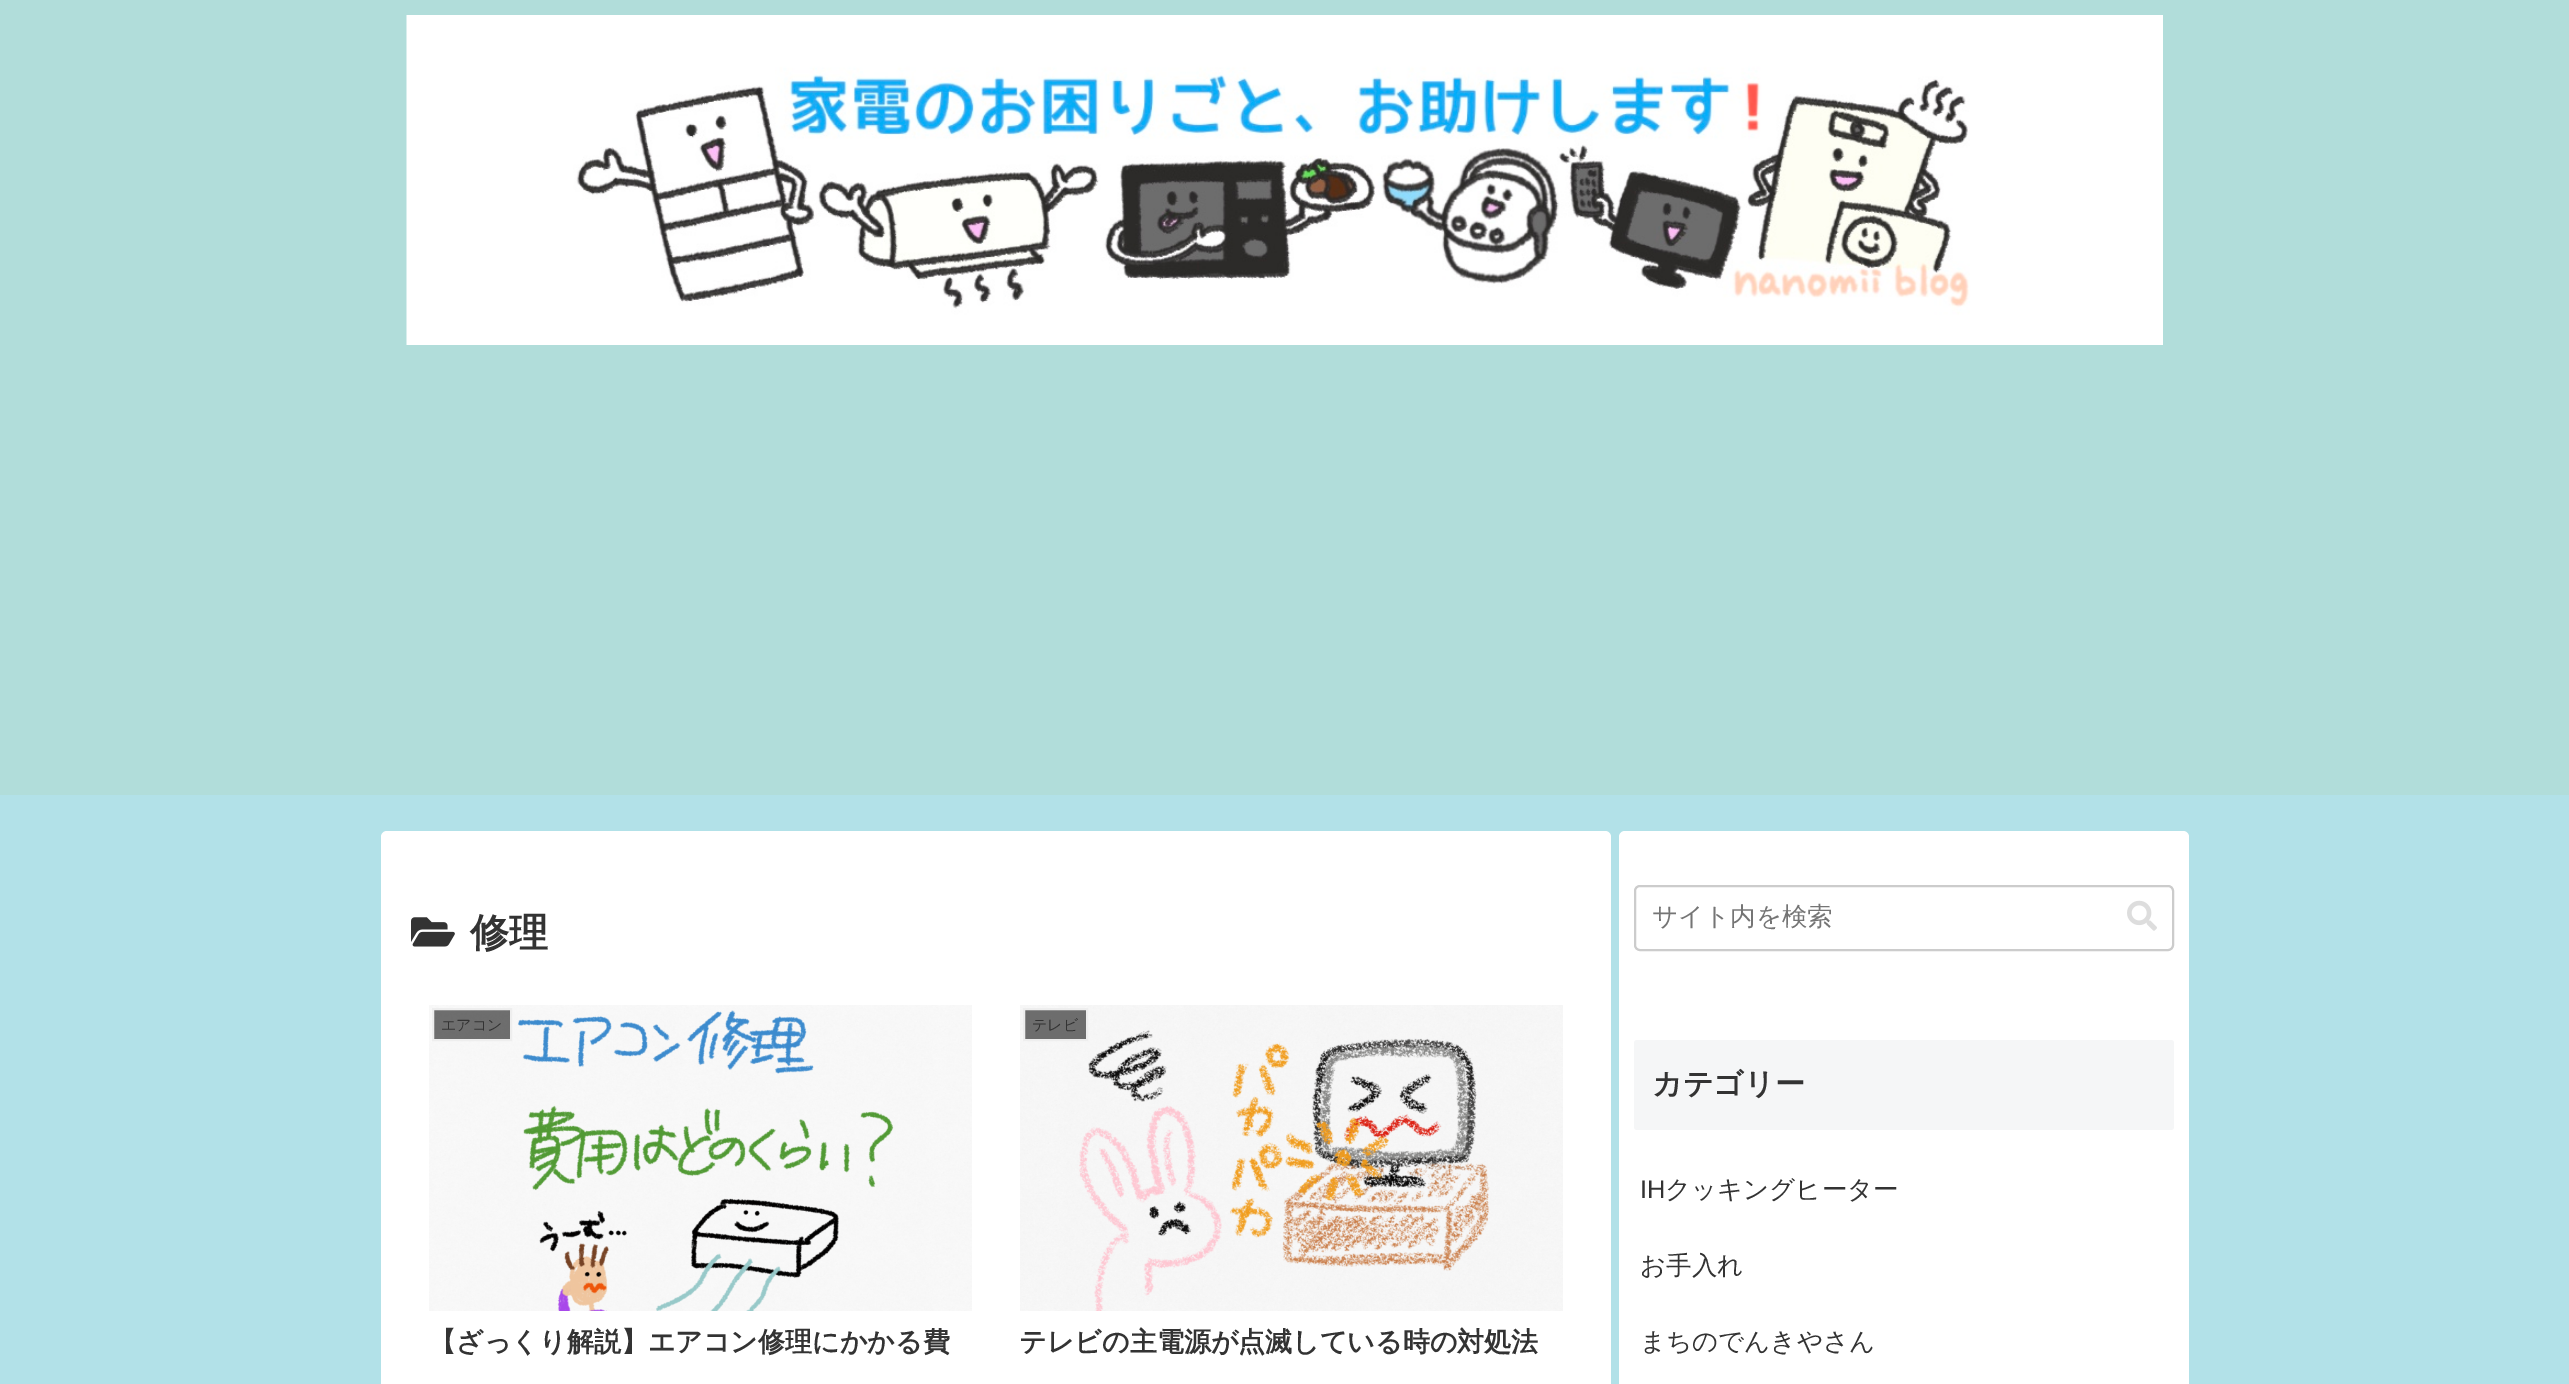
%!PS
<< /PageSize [2569 1384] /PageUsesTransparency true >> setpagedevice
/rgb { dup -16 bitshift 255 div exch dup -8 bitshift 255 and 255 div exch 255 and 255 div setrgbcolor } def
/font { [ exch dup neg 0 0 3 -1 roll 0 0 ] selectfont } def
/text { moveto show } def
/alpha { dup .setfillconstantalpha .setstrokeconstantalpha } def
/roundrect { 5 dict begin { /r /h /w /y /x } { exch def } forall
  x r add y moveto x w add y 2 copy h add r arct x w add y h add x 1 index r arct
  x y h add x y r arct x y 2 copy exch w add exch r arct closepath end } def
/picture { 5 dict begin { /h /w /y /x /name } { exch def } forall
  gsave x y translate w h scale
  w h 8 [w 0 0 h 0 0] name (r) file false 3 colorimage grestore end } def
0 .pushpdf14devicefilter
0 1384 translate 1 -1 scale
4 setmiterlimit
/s1 { /WenQuanYiZenHei-Bold 39 font 16#333333 rgb } def
/s2 { /WenQuanYiZenHei-Medium 15 font 16#333333 rgb } def
/s3 { /WenQuanYiZenHei-Bold 27 font 16#333333 rgb } def
/s4 { /WenQuanYiZenHei-Medium 25.5 font 16#757575 rgb } def
/s5 { /WenQuanYiZenHei-Bold 30 font 16#333333 rgb } def
/s6 { /LiberationSans-Regular 25.5 font 16#333333 rgb } def
/s7 { /WenQuanYiZenHei-Medium 25.5 font 16#333333 rgb } def
16#B2E1E8 rgb
0 0 2569 1384 rectfill
16#B1DDDA rgb
0 0 2569 795 rectfill
(pic1.raw) 406 15 1757 330 picture
16#FFFFFF rgb
381 831 1230 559 6 roundrect fill
(pic2.raw) 411 917 44 30 picture
s1
(修理) 470 946 text
(pic3.raw) 429 1005 543 306 picture
0.7 alpha
433 1009 moveto 511 1009 lineto 511 1040 lineto 433 1040 lineto closepath fill
1 alpha
16#EEEEEE rgb
2 setlinewidth
433 1009 moveto 511 1009 lineto 511 1040 lineto 433 1040 lineto closepath stroke
s2
(エアコン) 441 1030 text
s3
(【ざっくり解説】エアコン修理にかかる費) 429 1351 text
(pic4.raw) 1020 1005 543 306 picture
0.7 alpha
1024 1009 moveto 1087 1009 lineto 1087 1040 lineto 1024 1040 lineto closepath fill
1 alpha
16#EEEEEE rgb
1024 1009 moveto 1087 1009 lineto 1087 1040 lineto 1024 1040 lineto closepath stroke
s2
(テレビ) 1032 1030 text
s3
(テレビの主電源が点滅している時の対処法) 1019 1351 text
16#FFFFFF rgb
1619 831 570 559 6 roundrect fill
16#CCCCCC rgb
1635 886 538 64 5 roundrect stroke
s4
(サイト内を検索) 1652 925 text
(pic5.raw) 2127 900 30 31 picture
16#F5F6F7 rgb
1634 1040 540 90 3 roundrect fill
s5
(カテゴリー) 1652 1094 text
s6
(IH) 1640 1198 text
s7
(クッキングヒーター) 1665 1198 text
(お手入れ) 1640 1274 text
(まちのでんきやさん) 1640 1350 text
.poppdf14devicefilter showpage
